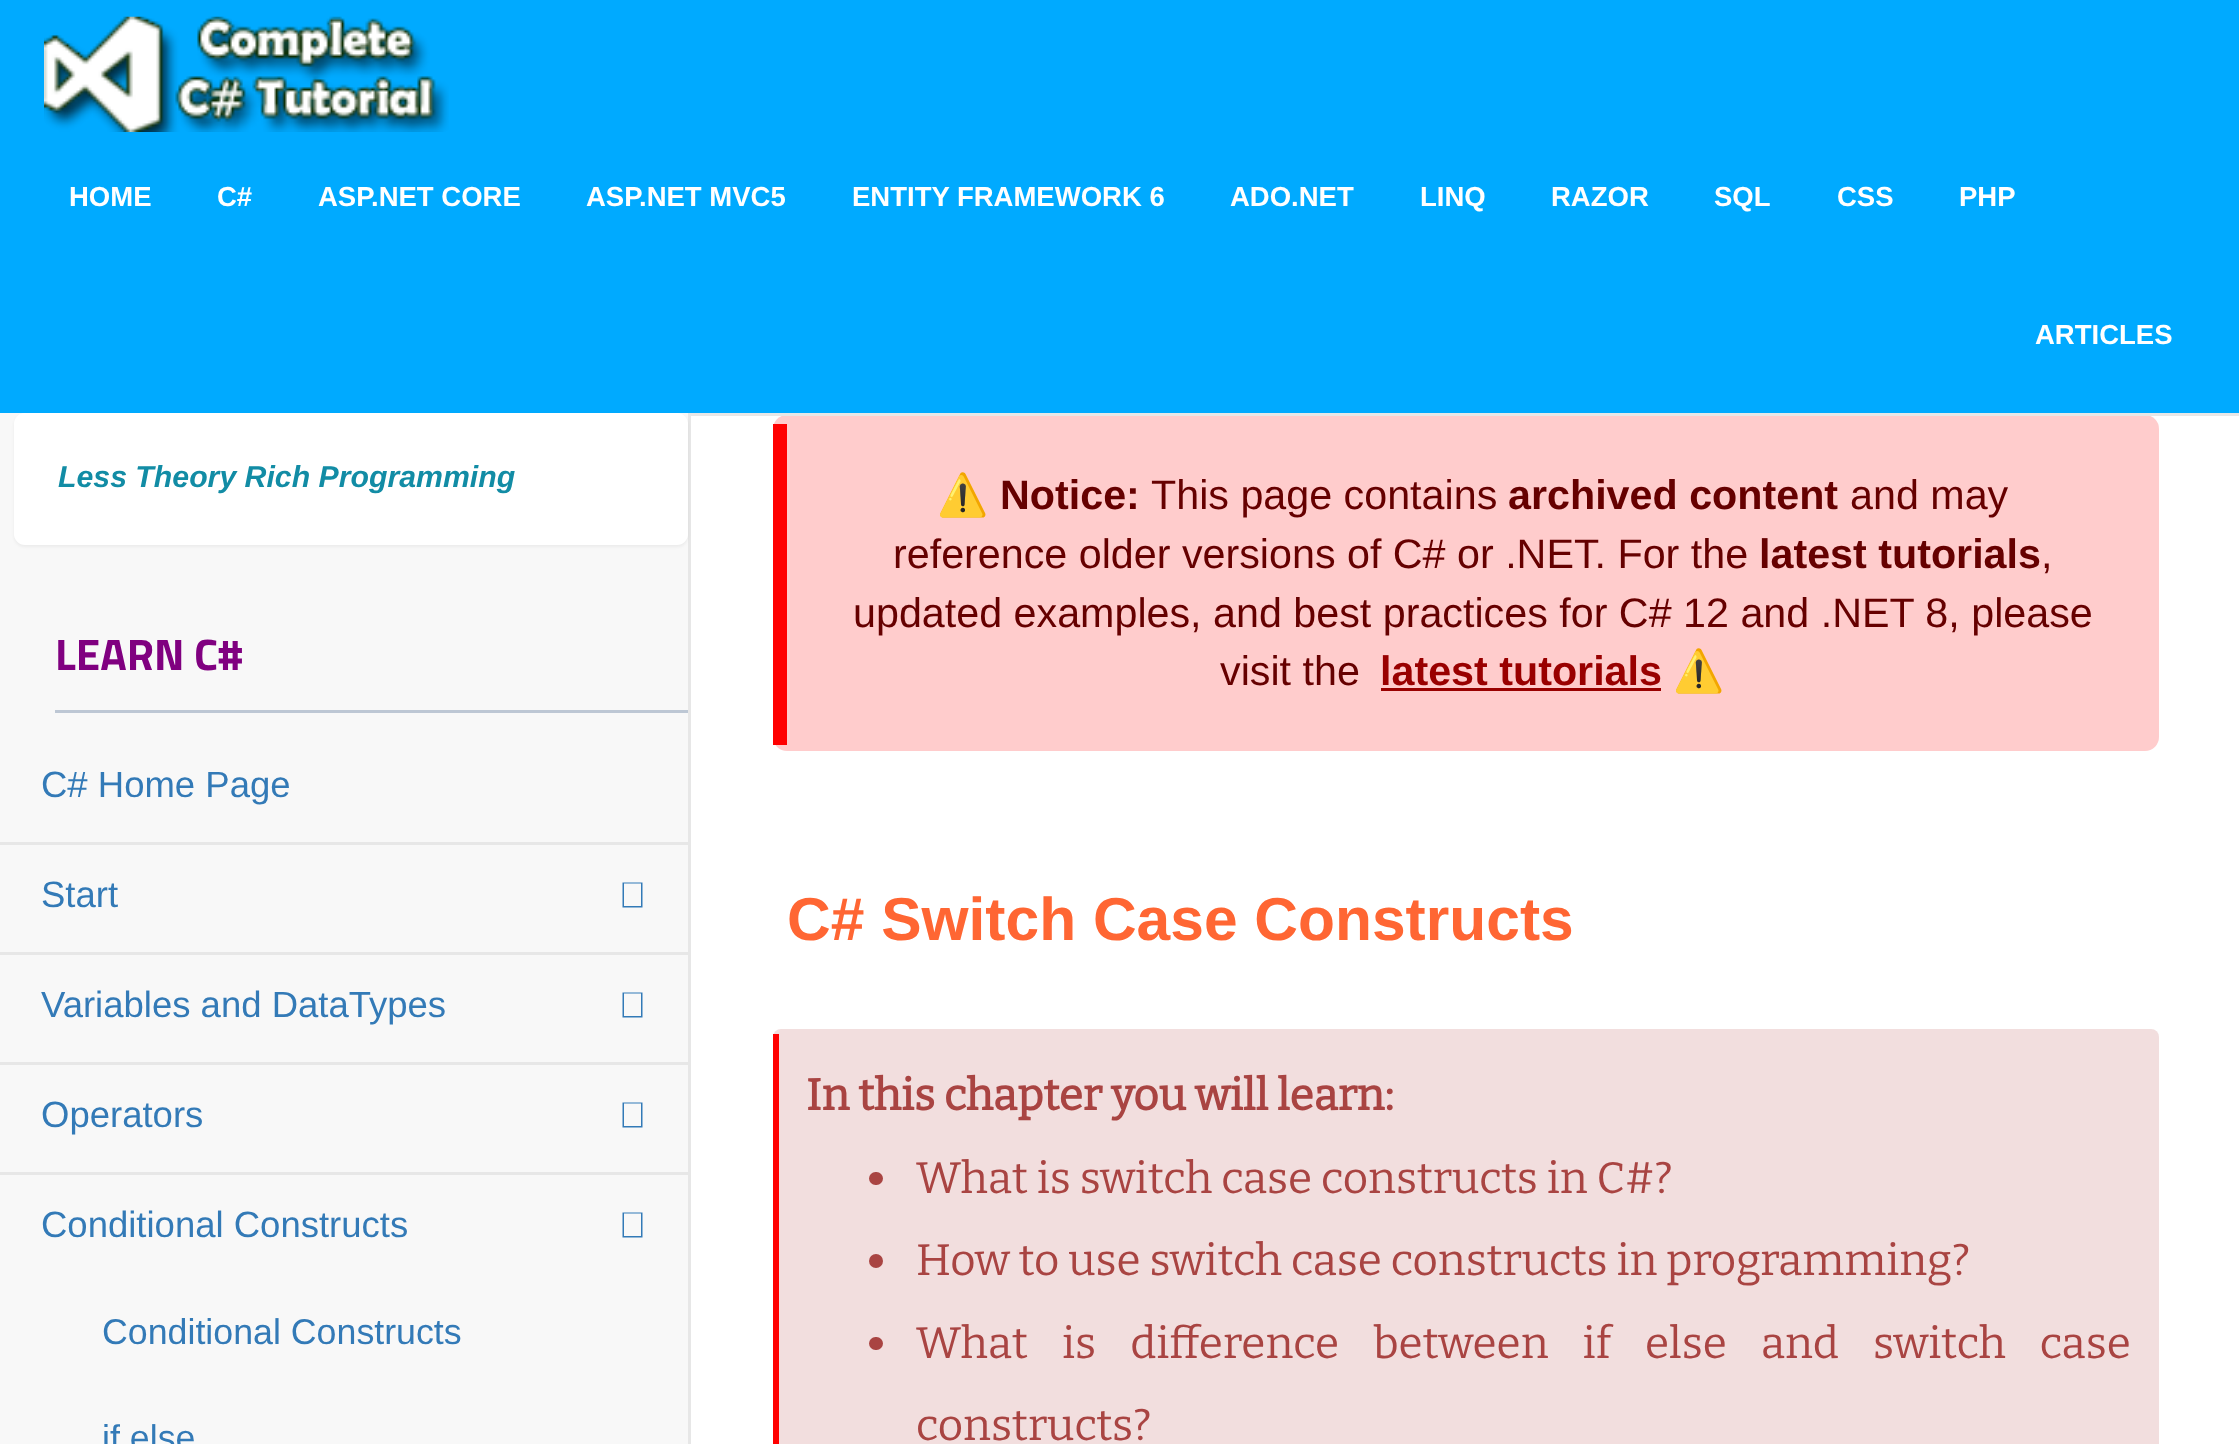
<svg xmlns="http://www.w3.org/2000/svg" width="2239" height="1444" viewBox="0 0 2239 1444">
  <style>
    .t1 { font: bold 27.5px Liberation Sans; fill: #fff; }
    .t2 { font: italic bold 30.25px Liberation Sans; fill: #128ca5; }
    .t3 { font: bold 44px Titillium Web; fill: #800080; }
    .t4 { font: 36.5px Liberation Sans; fill: #337ab7; }
    .t5 { font: 35.75px Liberation Sans; fill: #337ab7; }
    .t6 { font: 41.25px Noto Color Emoji; fill: #600; }
    .t7 { font: bold 41.25px Liberation Sans; fill: #600; }
    .t8 { font: 41.25px Liberation Sans; fill: #600; }
    .t9 { font: bold 41.25px Liberation Sans; fill: #900; }
    .t10 { font: bold 60.5px Liberation Sans; fill: #f63; }
    .t11 { font: bold 44px Bitter; fill: #a94442; }
    .t12 { font: 100 44px Bitter; fill: #a94442; }
  </style>
  <rect width="100%" height="100%" fill="#fff"/>
  <rect x="0" y="0" width="2239" height="413" fill="#0af"/>
  <rect x="688" y="415" width="3" height="1029" fill="#e7e7e7"/>
  <rect x="773" y="415" width="1386" height="336" rx="14" fill="#fcc"/>
  <rect x="688" y="413" width="1551" height="3" fill="#e7e7e7"/>
  <image x="44" y="16" width="405" height="116" href="images/1.png"/>
  <text x="69" y="206" class="t1">HOME</text>
  <text x="217" y="206" class="t1">C#</text>
  <text x="318" y="206" class="t1">ASP.NET CORE</text>
  <text x="586" y="206" class="t1">ASP.NET MVC5</text>
  <text x="852" y="206" class="t1">ENTITY FRAMEWORK 6</text>
  <text x="1230" y="206" class="t1">ADO.NET</text>
  <text x="1420" y="206" class="t1">LINQ</text>
  <text x="1551" y="206" class="t1">RAZOR</text>
  <text x="1714" y="206" class="t1">SQL</text>
  <text x="1837" y="206" class="t1">CSS</text>
  <text x="1959" y="206" class="t1">PHP</text>
  <text x="2035" y="344" class="t1">ARTICLES</text>
  <rect x="0" y="413" width="688" height="1031" fill="#f8f8f8"/>
  <rect x="14" y="415" width="674" height="132" rx="11" fill="#0000000d" filter="blur(1.5px)"/>
  <rect x="14" y="413" width="674" height="132" rx="11" fill="#fff"/>
  <text x="58" y="487" class="t2">Less Theory Rich Programming</text>
  <rect x="55" y="710" width="633" height="3" fill="#bdc7d4"/>
  <text x="55" y="670" class="t3">LEARN C#</text>
  <rect x="0" y="842" width="688" height="3" fill="#e7e7e7"/>
  <text x="41" y="797" class="t4">C# Home Page</text>
  <rect x="0" y="952" width="688" height="3" fill="#e7e7e7"/>
  <text x="41" y="907" class="t4">Start</text>
  <path d="M622.5 882.5H642.5V907.5H622.5ZM624 883.5V906H641V883.5Z" fill="#337ab7"/>
  <rect x="0" y="1062" width="688" height="3" fill="#e7e7e7"/>
  <text x="41" y="1017" class="t4">Variables and DataTypes</text>
  <path d="M622.5 992.5H642.5V1017.5H622.5ZM624 993.5V1016H641V993.5Z" fill="#337ab7"/>
  <rect x="0" y="1172" width="688" height="3" fill="#e7e7e7"/>
  <text x="41" y="1127" class="t4">Operators</text>
  <path d="M622.5 1102.5H642.5V1127.5H622.5ZM624 1103.5V1126H641V1103.5Z" fill="#337ab7"/>
  <text x="41" y="1237" class="t4">Conditional Constructs</text>
  <path d="M622.5 1212.5H642.5V1237.5H622.5ZM624 1213.5V1236H641V1213.5Z" fill="#337ab7"/>
  <text x="102" y="1344" class="t5">Conditional Constructs</text>
  <text x="102" y="1450" class="t5">if else</text>
  <rect x="773" y="424" width="14" height="321" fill="#f00"/>
  <text x="937" y="509" class="t6">⚠️</text>
  <text x="1000" y="509" class="t7">Notice:</text>
  <text x="1151" y="509" class="t8">This page contains</text>
  <text x="1508" y="509" class="t7">archived content</text>
  <text x="1850" y="509" class="t8">and may</text>
  <text x="893" y="568" class="t8">reference older versions of C# or .NET. For the</text>
  <text x="1759" y="568" class="t7">latest tutorials</text>
  <text x="2041" y="568" class="t8">,</text>
  <text x="853" y="627" class="t8">updated examples, and best practices for C# 12 and .NET 8, please</text>
  <text x="1220" y="685" class="t8">visit the</text>
  <text x="1380" y="685" class="t9">latest tutorials</text>
  <rect x="1381" y="688" width="280" height="3" fill="#900"/>
  <text x="1673" y="685" class="t6">⚠️</text>
  <text x="787" y="940" class="t10">C# Switch Case Constructs</text>
  <rect x="773" y="1029" width="1386" height="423" rx="8" fill="#f2dede"/>
  <rect x="773" y="1034" width="6" height="410" fill="#f00"/>
  <text x="806" y="1110" class="t11">In this chapter you will learn:</text>
  <rect x="869" y="1172" width="14" height="13" rx="6.5" fill="#a94442"/>
  <text x="916" y="1193" class="t12">What is switch case constructs in C#?</text>
  <circle cx="876" cy="1261" r="7" fill="#a94442"/>
  <text x="916" y="1275" class="t12">How to use switch case constructs in programming?</text>
  <rect x="869" y="1337" width="14" height="13" rx="6.5" fill="#a94442"/>
  <text x="916" y="1358" word-spacing="25.25" class="t12">What is difference between if else and switch case</text>
  <text x="916" y="1440" class="t12">constructs?</text>
</svg>
